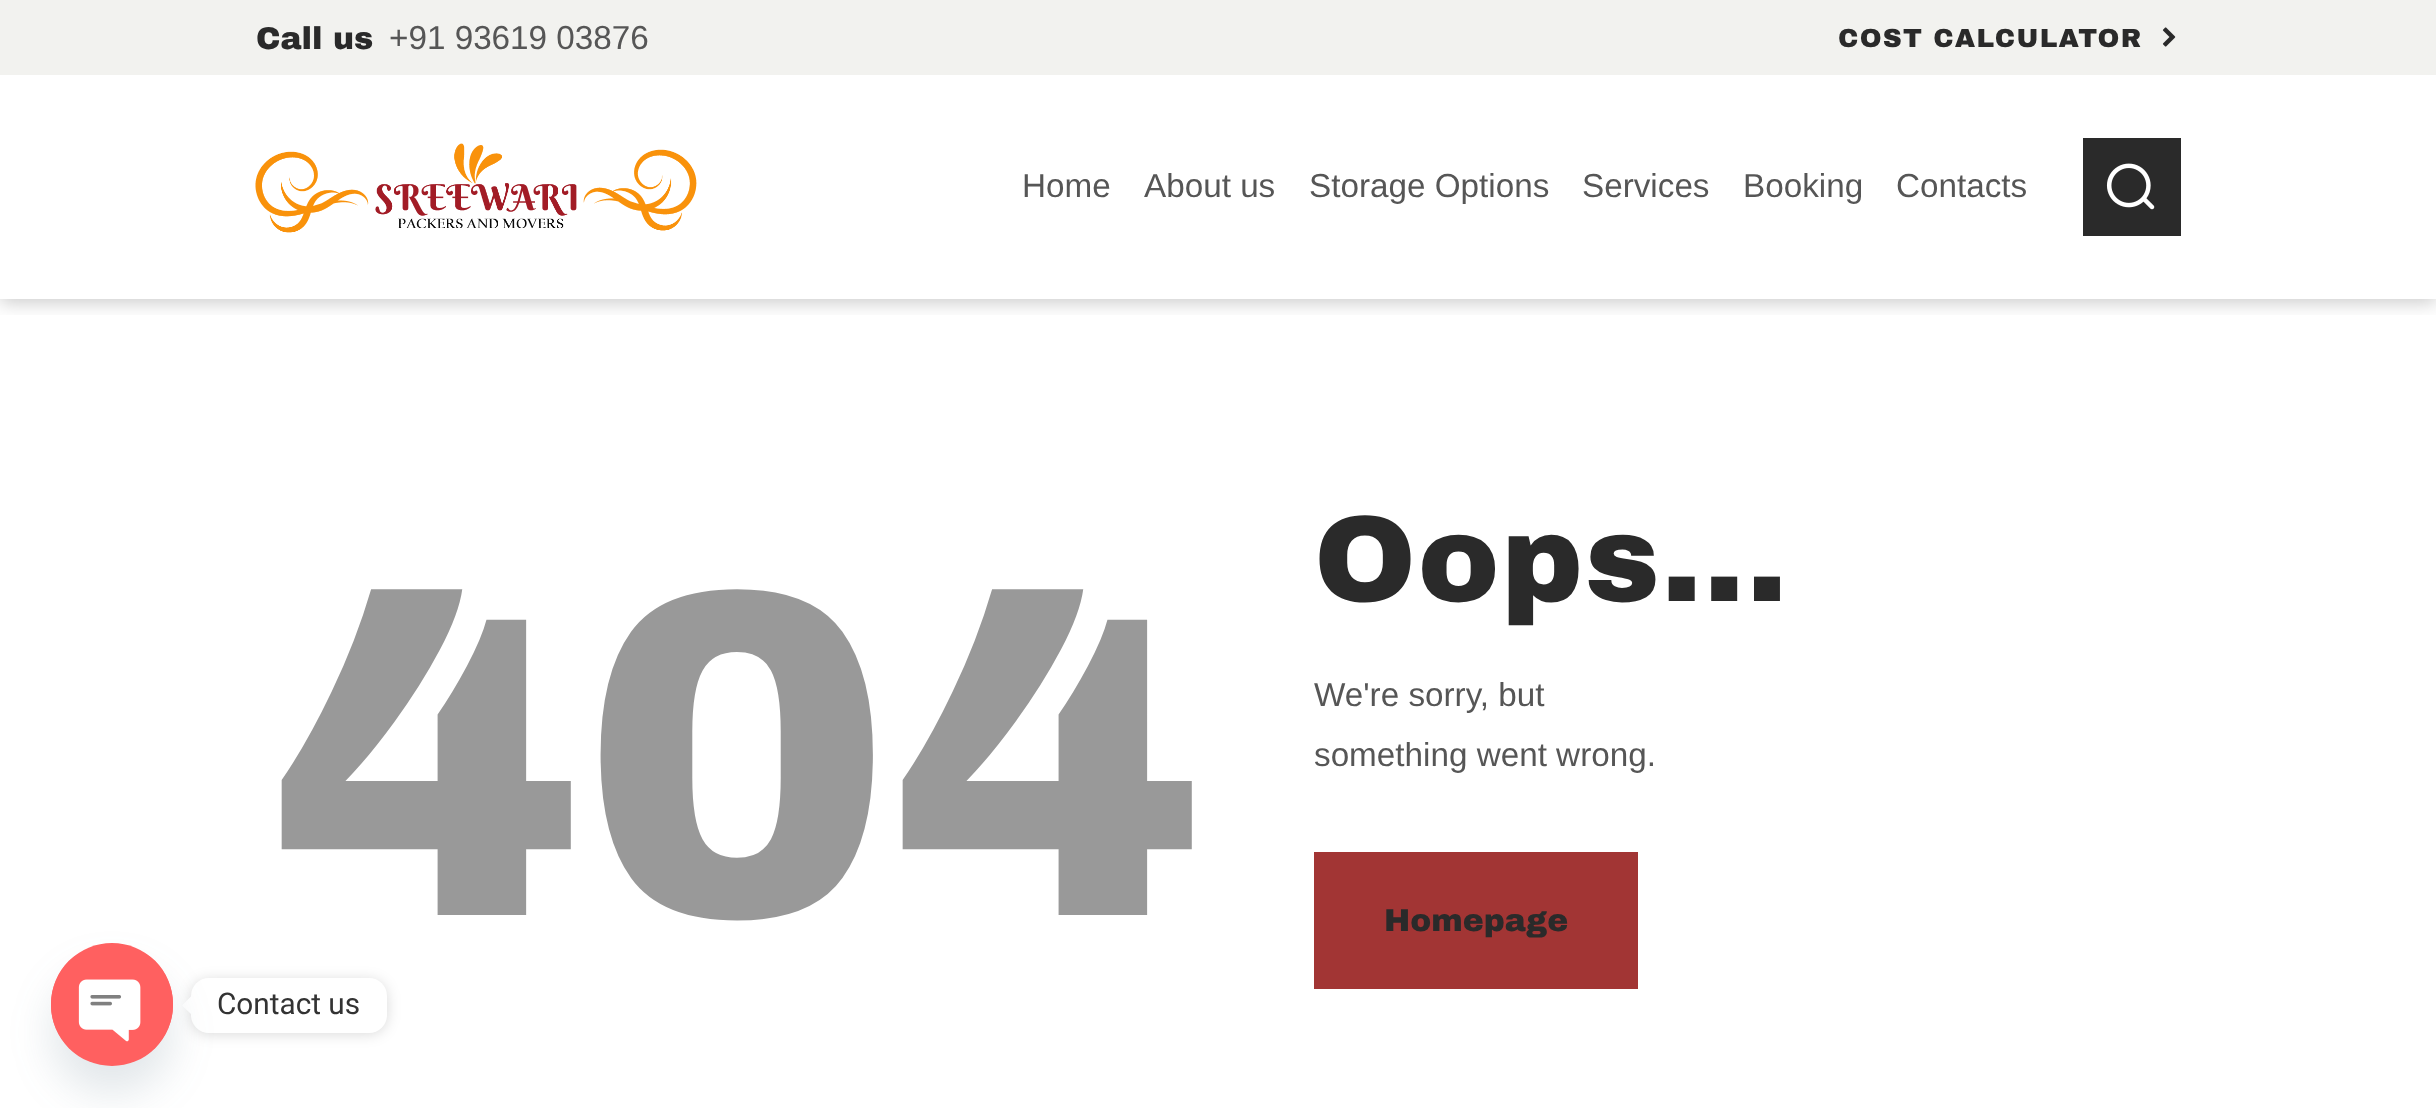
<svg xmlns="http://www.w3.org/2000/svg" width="2436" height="1108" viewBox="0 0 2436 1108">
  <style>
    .t1 { font: 900 31.5px Archivo Black; fill: #2a2a2a; }
    .t2 { font: 33.25px Arimo; fill: #565656; }
    .t3 { font: 900 26.25px Archivo Black; letter-spacing: 1.25px; fill: #2a2a2a; }
    .t4 { font: 900 465.5px Archivo Black; fill: #999; }
    .t5 { font: 900 122.5px Archivo Black; letter-spacing: 1.75px; fill: #2a2a2a; }
    .t6 { font: 29.75px Roboto; fill: #333; }
  </style>
  <defs>
    <clipPath id="clip1"><rect x="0" y="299" width="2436" height="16"/></clipPath>
  </defs>
  <rect width="100%" height="100%" fill="#fff"/>
  <g clip-path="url(#clip1)">
    <rect x="0" y="4" width="2436" height="299" fill="#00000033" filter="blur(9px)"/>
  </g>
  <rect x="0" y="0" width="2436" height="75" fill="#f2f2ef"/>
  <text x="256" y="49" class="t1">Call us</text>
  <text x="389" y="49" class="t2">+91 93619 03876</text>
  <text x="1838" y="47" class="t3">COST CALCULATOR</text>
  <image x="2162" y="27" width="14" height="20" href="images/1.png"/>
  <image x="255" y="143" width="442" height="90" href="images/2.png"/>
  <text x="1022" y="197" class="t2">Home</text>
  <text x="1144" y="197" class="t2">About us</text>
  <text x="1309" y="197" class="t2">Storage Options</text>
  <text x="1582" y="197" class="t2">Services</text>
  <text x="1743" y="197" class="t2">Booking</text>
  <text x="1896" y="197" class="t2">Contacts</text>
  <rect x="2083" y="138" width="98" height="98" fill="#2a2a2a"/>
  <image x="2106" y="163" width="49" height="47" href="images/3.png"/>
  <text x="271" y="915" class="t4">404</text>
  <text x="1314" y="601" class="t5">Oops...</text>
  <text x="1314" y="706" class="t2">We're sorry, but</text>
  <text x="1314" y="766" class="t2">something went wrong.</text>
  <rect x="1314" y="852" width="324" height="137" fill="#a23534"/>
  <text x="1384" y="931" class="t1">Homepage</text>
  <rect x="191" y="980" width="196" height="54" rx="18" fill="#00000026" filter="blur(7px)"/>
  <rect x="191" y="978" width="196" height="55" rx="18" fill="#fff"/>
  <path d="M191 996.5V1014L182 1005.5Z" fill="#fff"/>
  <rect x="51" y="971" width="122" height="123" rx="61" fill="#49687e29" filter="blur(21px)"/>
  <rect x="51" y="943" width="122" height="123" rx="61" fill="#ff6060"/>
  <image x="51" y="954" width="122" height="101" href="images/4.png"/>
  <text x="217" y="1014" class="t6">Contact us</text>
</svg>
